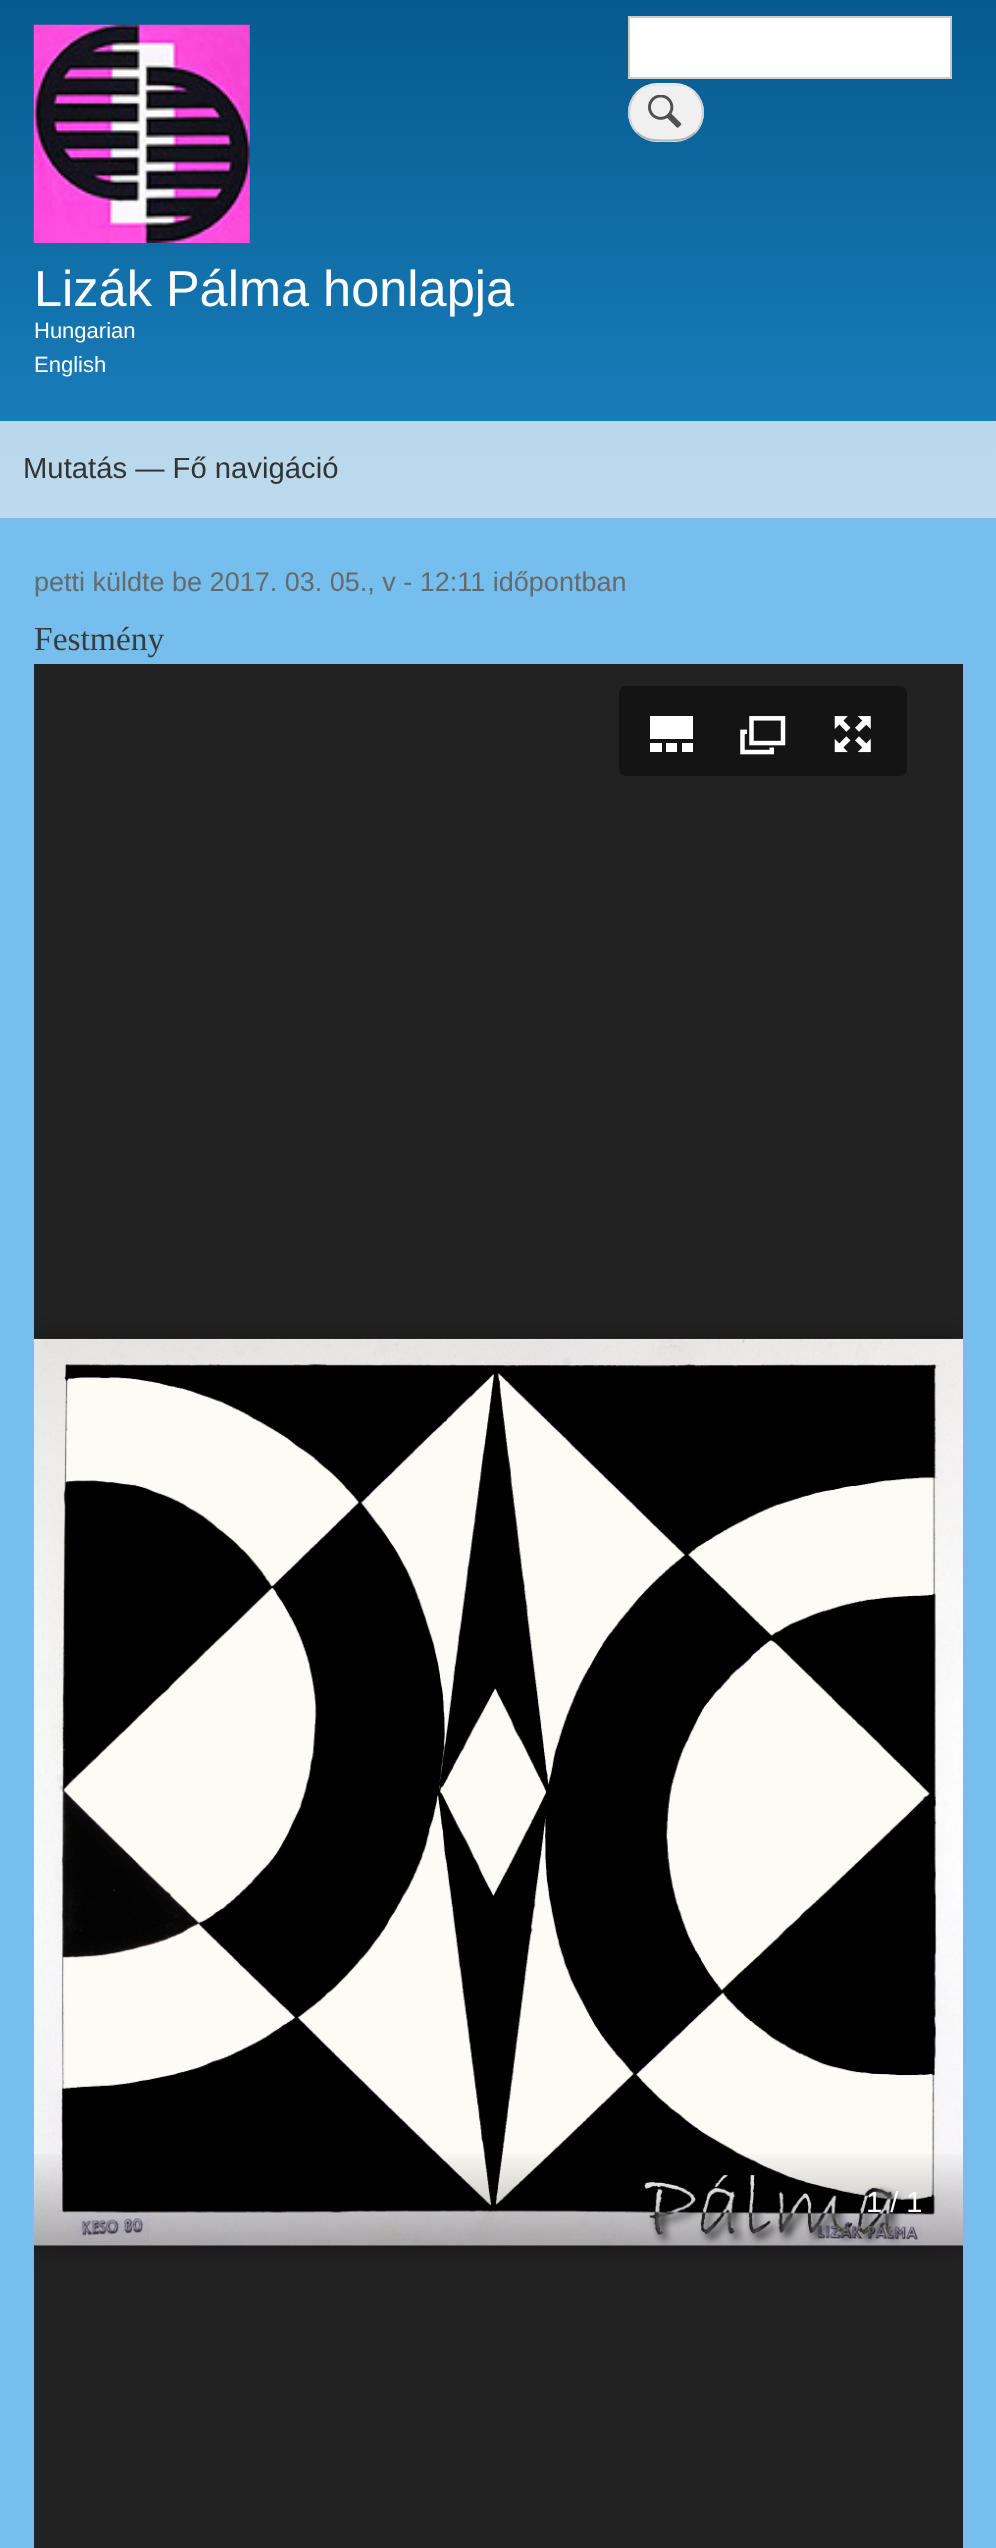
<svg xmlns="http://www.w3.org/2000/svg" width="996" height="2548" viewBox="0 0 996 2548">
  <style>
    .t1 { font: 50.5px Liberation Sans; fill: #fffeff; }
    .t2 { font: 22px Liberation Sans; fill: #fffeff; }
    .t3 { font: 29.25px Liberation Sans; fill: #333; }
    .t4 { font: 27px Liberation Sans; fill: #68696b; }
    .t5 { font: 33.5px Liberation Serif; fill: #3b3b3b; }
    .t6 { font: 29px Liberation Sans; fill: #fffeff; }
  </style>
  <defs>
    <linearGradient id="g1" gradientUnits="userSpaceOnUse" x1="498" y1="0" x2="498" y2="518"><stop offset="0" stop-color="#055a8e"/><stop offset="1" stop-color="#1d84c3"/></linearGradient>
    <linearGradient id="g2" gradientUnits="userSpaceOnUse" x1="498" y1="0" x2="498" y2="518"><stop offset="0" stop-color="#b4cedd"/><stop offset="1" stop-color="#bbdaed"/></linearGradient>
    <clipPath id="clip1"><rect x="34" y="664" width="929" height="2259"/></clipPath>
    <linearGradient id="g3" gradientUnits="userSpaceOnUse" x1="498" y1="2147" x2="498" y2="2246"><stop offset="0" stop-color="#000" stop-opacity="0"/><stop offset="1" stop-color="#000" stop-opacity="0.3"/></linearGradient>
  </defs>
  <rect width="100%" height="100%" fill="#74bfed"/>
  <rect x="0" y="0" width="996" height="421" fill="url(#g1)"/>
  <rect x="0" y="421" width="996" height="97" fill="url(#g2)"/>
  <rect x="629" y="17" width="322" height="61" fill="#fff" stroke="#ccc" stroke-width="2"/>
  <rect x="628" y="83" width="76" height="59" rx="29.5" fill="#f0f0f0"/>
  <image x="648" y="95" width="34" height="33" href="images/1.png"/>
  <path d="M637 92.5C645 84.5 655 84.5 666 84.5C677 84.5 687 84.5 695 92.5" fill="none" stroke="#e4e4e4" stroke-width="2.2"/>
  <path d="M695 92.5C705.5 103.5 705.5 121.5 695 132.5" fill="none" stroke="#d2d2d2" stroke-width="2.2"/>
  <path d="M695 132.5C687 140.5 677 140.5 666 140.5C655 140.5 645 140.5 637 132.5" fill="none" stroke="#b4b4b4" stroke-width="2.2"/>
  <path d="M637 132.5C626.5 121.5 626.5 103.5 637 92.5" fill="none" stroke="#d2d2d2" stroke-width="2.2"/>
  <image x="33" y="24" width="217" height="219" href="images/2.png"/>
  <text x="34" y="306" class="t1">Lizák Pálma honlapja</text>
  <text x="34" y="338" class="t2">Hungarian</text>
  <text x="34" y="372" class="t2">English</text>
  <text x="23" y="478" class="t3">Mutatás — Fő navigáció</text>
  <text x="34" y="591" class="t4">petti küldte be 2017. 03. 05., v - 12:11 időpontban</text>
  <text x="34" y="650" class="t5">Festmény</text>
  <rect x="34" y="664" width="929" height="1884" fill="#222"/>
  <rect x="619" y="686" width="288" height="90" rx="7" fill="#141414"/>
  <path d="M693 739H650V716H693ZM650 752V743H662V752ZM666 743H677V752H666ZM682 752V743H693V752Z" fill="#fff"/>
  <image x="740" y="716" width="46" height="39" href="images/3.png"/>
  <image x="834" y="716" width="37" height="37" href="images/4.png"/>
  <g clip-path="url(#clip1)">
    <rect x="34" y="1339" width="929" height="907" fill="#00000066" filter="blur(11px)"/>
  </g>
  <image x="33" y="1338" width="930" height="908" href="images/5.png"/>
  <rect x="34" y="2154" width="929" height="92" fill="url(#g3)"/>
  <text x="866" y="2212" class="t6">1 / 1</text>
</svg>
